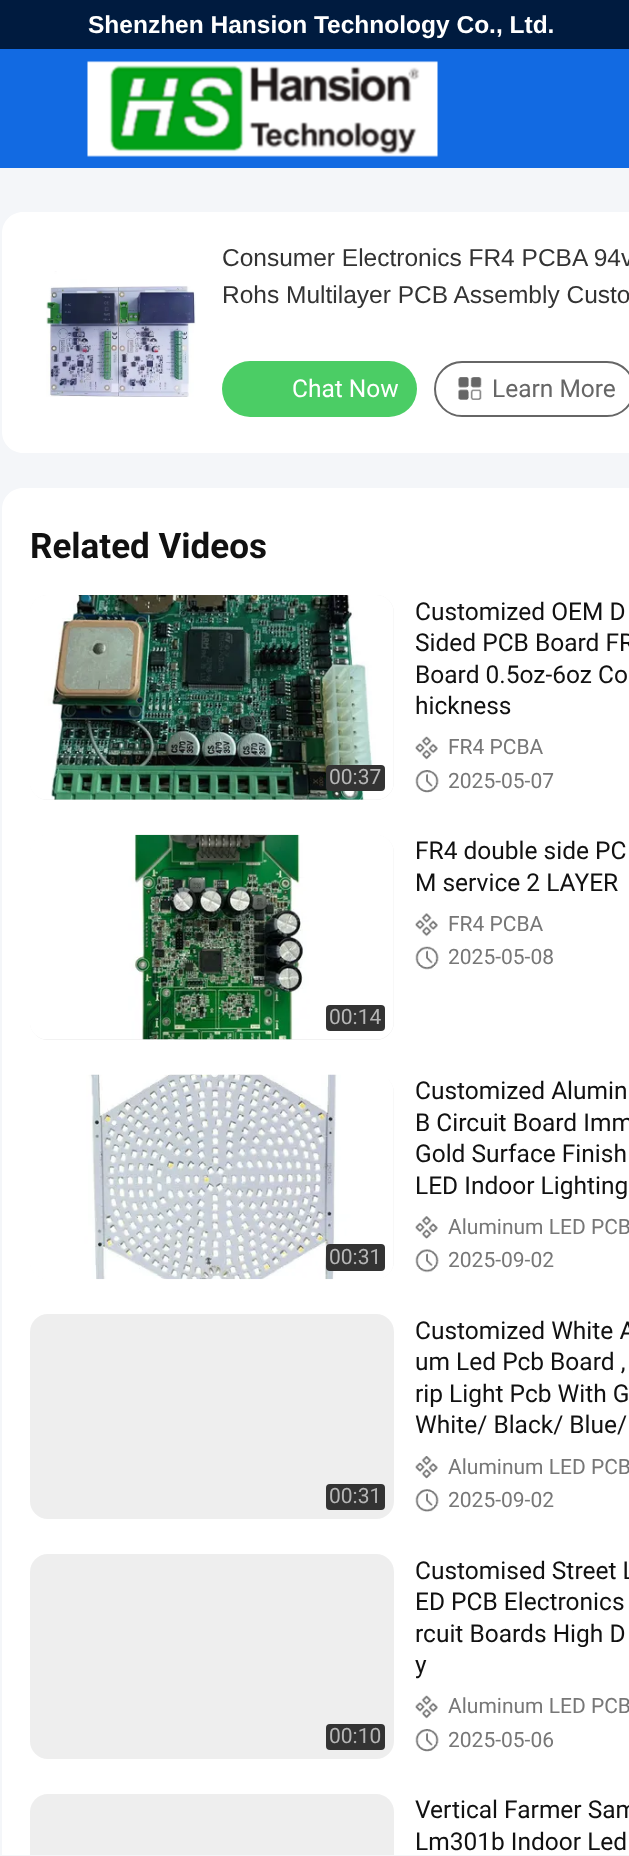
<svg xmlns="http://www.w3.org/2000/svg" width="629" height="1856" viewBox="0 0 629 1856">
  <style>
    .t1 { font: bold 24.5px Liberation Sans; fill: #fff; }
    .t2 { font: 24.5px Liberation Sans; fill: #333; }
    .t3 { font: 24.5px Roboto; fill: #fff; }
    .t4 { font: 24.5px Roboto; fill: #666; }
    .t5 { font: bold 35px Roboto; fill: #111; }
    .t6 { font: 21px Roboto; fill: #b6b6b6; }
    .t7 { font: 24.5px Roboto; fill: #111; }
    .t8 { font: 21px Roboto; fill: #777; }
  </style>
  <rect width="100%" height="100%" fill="#f4f6f9"/>
  <rect x="0" y="0" width="629" height="49" fill="#001b3f"/>
  <text x="88" y="33" class="t1">Shenzhen Hansion Technology Co., Ltd.</text>
  <rect x="0" y="49" width="629" height="119" fill="#126ae2"/>
  <image x="87" y="61" width="351" height="96" href="images/1.png"/>
  <path d="M23 212H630V453H23C11.5 453 2 443.5 2 432V233C2 221.5 11.5 212 23 212Z" fill="#fff"/>
  <image x="46" y="271" width="150" height="126" href="images/2.png"/>
  <text x="222" y="266" class="t2">Consumer Electronics FR4 PCBA 94v</text>
  <text x="222" y="303" class="t2">Rohs Multilayer PCB Assembly Custo</text>
  <rect x="222" y="361" width="195" height="56" rx="28" fill="#4bcd65"/>
  <text x="292" y="397" class="t3">Chat Now</text>
  <rect x="435" y="362" width="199" height="54" rx="27" fill="none" stroke="#666" stroke-width="2"/>
  <image x="458" y="377" width="24" height="23" href="images/3.png"/>
  <text x="492" y="397" class="t4">Learn More</text>
  <path d="M23 488H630V1855H2V509C2 497.5 11.5 488 23 488Z" fill="#fff"/>
  <text x="30" y="558" class="t5">Related Videos</text>
  <rect x="30" y="595" width="364" height="205" rx="18" fill="#eee"/>
  <image x="30" y="595" width="364" height="205" href="images/4.png"/>
  <rect x="326" y="765" width="59" height="26" rx="4" fill="#333"/>
  <text x="329" y="784" class="t6">00:37</text>
  <text x="415" y="620" class="t7">Customized OEM D</text>
  <text x="415" y="651" class="t7">Sided PCB Board FR</text>
  <text x="415" y="683" class="t7">Board 0.5oz-6oz Co</text>
  <text x="415" y="714" class="t7">hickness</text>
  <image x="415" y="736" width="23" height="24" href="images/5.png"/>
  <text x="448" y="754" class="t8">FR4 PCBA</text>
  <image x="415" y="770" width="24" height="23" href="images/6.png"/>
  <text x="448" y="788" class="t8">2025-05-07</text>
  <text x="415" y="859" class="t7">FR4 double side PC</text>
  <text x="415" y="891" class="t7">M service 2 LAYER</text>
  <image x="415" y="913" width="23" height="24" href="images/7.png"/>
  <text x="448" y="931" class="t8">FR4 PCBA</text>
  <image x="415" y="946" width="24" height="24" href="images/8.png"/>
  <text x="448" y="964" class="t8">2025-05-08</text>
  <rect x="30" y="835" width="364" height="205" rx="18" fill="#eee"/>
  <image x="30" y="834" width="364" height="206" href="images/9.png"/>
  <rect x="326" y="1005" width="59" height="26" rx="4" fill="#333"/>
  <text x="329" y="1024" class="t6">00:14</text>
  <rect x="30" y="1075" width="364" height="204" rx="18" fill="#eee"/>
  <image x="30" y="1074" width="364" height="206" href="images/10.png"/>
  <rect x="326" y="1244" width="59" height="27" rx="4" fill="#333"/>
  <text x="329" y="1264" class="t6">00:31</text>
  <text x="415" y="1099" class="t7">Customized Alumin</text>
  <text x="415" y="1131" class="t7">B Circuit Board Imm</text>
  <text x="415" y="1162" class="t7">Gold Surface Finish</text>
  <text x="415" y="1194" class="t7">LED Indoor Lighting</text>
  <image x="415" y="1216" width="23" height="23" href="images/11.png"/>
  <text x="448" y="1234" class="t8">Aluminum LED PCB</text>
  <image x="415" y="1249" width="24" height="24" href="images/12.png"/>
  <text x="448" y="1267" class="t8">2025-09-02</text>
  <rect x="30" y="1314" width="364" height="205" rx="18" fill="#eee"/>
  <rect x="326" y="1484" width="59" height="26" rx="4" fill="#333"/>
  <text x="329" y="1503" class="t6">00:31</text>
  <text x="415" y="1339" class="t7">Customized White A</text>
  <text x="415" y="1370" class="t7">um Led Pcb Board ,</text>
  <text x="415" y="1402" class="t7">rip Light Pcb With G</text>
  <text x="415" y="1433" class="t7">White/ Black/ Blue/</text>
  <image x="415" y="1456" width="23" height="23" href="images/13.png"/>
  <text x="448" y="1474" class="t8">Aluminum LED PCB</text>
  <image x="415" y="1489" width="24" height="23" href="images/14.png"/>
  <text x="448" y="1507" class="t8">2025-09-02</text>
  <rect x="30" y="1554" width="364" height="205" rx="18" fill="#eee"/>
  <rect x="326" y="1724" width="59" height="26" rx="4" fill="#333"/>
  <text x="329" y="1743" class="t6">00:10</text>
  <text x="415" y="1579" class="t7">Customised Street L</text>
  <text x="415" y="1610" class="t7">ED PCB Electronics</text>
  <text x="415" y="1642" class="t7">rcuit Boards High D</text>
  <text x="415" y="1673" class="t7">y</text>
  <image x="415" y="1695" width="23" height="24" href="images/5.png"/>
  <text x="448" y="1713" class="t8">Aluminum LED PCB</text>
  <image x="415" y="1729" width="24" height="23" href="images/6.png"/>
  <text x="448" y="1747" class="t8">2025-05-06</text>
  <path d="M48 1794H376C386 1794 394 1802 394 1812V1855H30V1812C30 1802 38 1794 48 1794Z" fill="#eee"/>
  <text x="415" y="1818" class="t7">Vertical Farmer Sam</text>
  <text x="415" y="1850" class="t7">Lm301b Indoor Led</text>
</svg>
